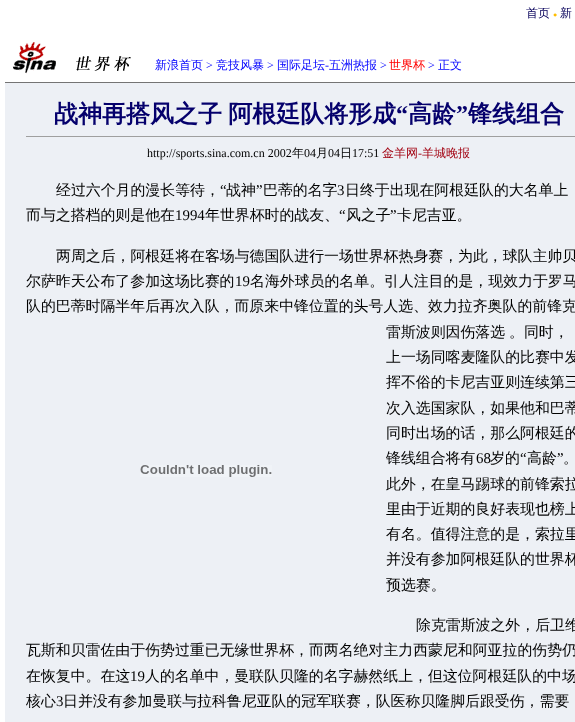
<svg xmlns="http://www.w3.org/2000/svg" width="575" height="722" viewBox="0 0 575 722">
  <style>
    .t1 { font: 500 12px WenQuanYi Zen Hei; fill: #07015b; }
    .t2 { font: 7px Liberation Serif; fill: #ffbd00; }
    .t3 { font: 500 12px WenQuanYi Zen Hei; fill: #00f; }
    .t4 { font: 12px Liberation Serif; fill: #00f; }
    .t5 { font: 500 12px WenQuanYi Zen Hei; fill: #f00; }
    .t6 { font: bold 24px WenQuanYi Zen Hei; fill: #05006c; }
    .t7 { font: bold 24px Liberation Serif; fill: #05006c; }
    .t8 { font: 12px Liberation Serif; fill: #000; }
    .t9 { font: 500 12px WenQuanYi Zen Hei; fill: #000; }
    .t10 { font: 500 12px WenQuanYi Zen Hei; fill: #a20010; }
    .t11 { font: 12px Liberation Serif; fill: #a20010; }
    .t12 { font: 500 14.9px WenQuanYi Zen Hei; fill: #000; }
    .t13 { font: 14.9px Liberation Serif; fill: #000; }
  </style>
  <rect width="100%" height="100%" fill="#fff"/>
  <text x="526" y="17" class="t1">首页</text>
  <text x="553" y="17" class="t2">●</text>
  <text x="560" y="17" class="t1">新</text>
  <image x="12" y="42" width="119" height="32" href="images/1.png"/>
  <text x="155" y="69" class="t3">新浪首页</text>
  <text x="206" y="69" class="t4">&gt;</text>
  <text x="216" y="69" class="t3">竞技风暴</text>
  <text x="267" y="69" class="t4">&gt;</text>
  <text x="277" y="69" class="t3">国际足坛</text>
  <text x="325" y="69" class="t4">-</text>
  <text x="329" y="69" class="t3">五洲热报</text>
  <text x="380" y="69" class="t4">&gt;</text>
  <text x="389" y="69" class="t5">世界杯</text>
  <text x="428" y="69" class="t4">&gt;</text>
  <text x="438" y="69" class="t3">正文</text>
  <rect x="5" y="82" width="570" height="1" fill="#747474"/>
  <rect x="5" y="83" width="570" height="639" fill="#edf0f5"/>
  <text x="54" y="122" word-spacing="-1" class="t6">战神再搭风之子 阿根廷队将形成</text>
  <text x="396" y="122" class="t7">“</text>
  <text x="408" y="122" class="t6">高龄</text>
  <text x="456" y="122" class="t7">”</text>
  <text x="468" y="122" class="t6">锋线组合</text>
  <rect x="26" y="136" width="549" height="1" fill="#9f9f9f"/>
  <text x="147" y="157" class="t8">http://sports.sina.com.cn 2002</text>
  <text x="292" y="157" class="t9">年</text>
  <text x="304" y="157" class="t8">04</text>
  <text x="316" y="157" class="t9">月</text>
  <text x="328" y="157" class="t8">04</text>
  <text x="340" y="157" class="t9">日</text>
  <text x="352" y="157" class="t8">17:51</text>
  <text x="382" y="157" class="t10">金羊网</text>
  <text x="418" y="157" class="t11">-</text>
  <text x="422" y="157" class="t10">羊城晚报</text>
  <text x="56" y="195" class="t12">经过六个月的漫长等待，</text>
  <text x="220" y="195" class="t13">“</text>
  <text x="226" y="195" class="t12">战神</text>
  <text x="256" y="195" class="t13">”</text>
  <text x="263" y="195" class="t12">巴蒂的名字</text>
  <text x="337" y="195" class="t13">3</text>
  <text x="345" y="195" class="t12">日终于出现在阿根廷队的大名单上</text>
  <text x="26" y="220" class="t12">而与之搭档的则是他在</text>
  <text x="175" y="220" class="t13">1994</text>
  <text x="205" y="220" class="t12">年世界杯时的战友、</text>
  <text x="339" y="220" class="t13">“</text>
  <text x="346" y="220" class="t12">风之子</text>
  <text x="390" y="220" class="t13">”</text>
  <text x="397" y="220" class="t12">卡尼吉亚。</text>
  <text x="56" y="261" class="t12">两周之后，阿根廷将在客场与德国队进行一场世界杯热身赛，为此，球队主帅贝</text>
  <text x="26" y="286" class="t12">尔萨昨天公布了参加这场比赛的</text>
  <text x="235" y="286" class="t13">19</text>
  <text x="250" y="286" class="t12">名海外球员的名单。引人注目的是，现效力于罗马</text>
  <text x="26" y="311" class="t12">队的巴蒂时隔半年后再次入队，而原来中锋位置的头号人选、效力拉齐奥队的前锋克</text>
  <text x="386" y="337" class="t12">雷斯波则因伤落选</text>
  <text x="509" y="337" class="t12">。同时，</text>
  <text x="386" y="362" class="t12">上一场同喀麦隆队的比赛中发</text>
  <text x="386" y="387" class="t12">挥不俗的卡尼吉亚则连续第三</text>
  <text x="386" y="413" class="t12">次入选国家队，如果他和巴蒂</text>
  <text x="386" y="438" class="t12">同时出场的话，那么阿根廷的</text>
  <text x="386" y="463" class="t12">锋线组合将有</text>
  <text x="476" y="463" class="t13">68</text>
  <text x="490" y="463" class="t12">岁的</text>
  <text x="520" y="463" class="t13">“</text>
  <text x="527" y="463" class="t12">高龄</text>
  <text x="557" y="463" class="t13">”</text>
  <text x="563" y="463" class="t12">。</text>
  <image x="140" y="465" width="132" height="12" href="images/2.png"/>
  <text x="386" y="489" class="t12">此外，在皇马踢球的前锋索拉</text>
  <text x="386" y="514" class="t12">里由于近期的良好表现也榜上</text>
  <text x="386" y="539" class="t12">有名。值得注意的是，索拉里</text>
  <text x="386" y="564" class="t12">并没有参加阿根廷队的世界杯</text>
  <text x="386" y="590" class="t12">预选赛。</text>
  <text x="416" y="630" class="t12">除克雷斯波之外，后卫维</text>
  <text x="26" y="655" class="t12">瓦斯和贝雷佐由于伤势过重已无缘世界杯，而两名绝对主力西蒙尼和阿亚拉的伤势仍</text>
  <text x="26" y="681" class="t12">在恢复中。在这</text>
  <text x="130" y="681" class="t13">19</text>
  <text x="145" y="681" class="t12">人的名单中，曼联队贝隆的名字赫然纸上，但这位阿根廷队的中场</text>
  <text x="26" y="706" class="t12">核心</text>
  <text x="56" y="706" class="t13">3</text>
  <text x="63" y="706" class="t12">日并没有参加曼联与拉科鲁尼亚队的冠军联赛，队医称贝隆脚后跟受伤，需要</text>
</svg>
